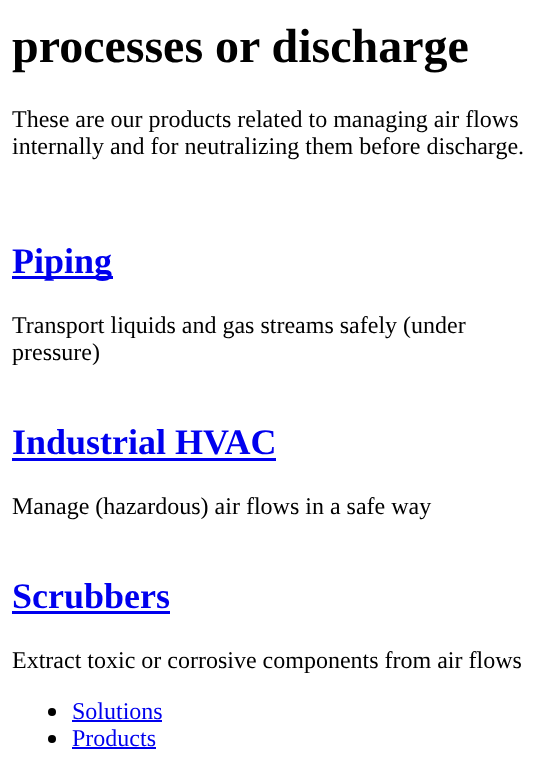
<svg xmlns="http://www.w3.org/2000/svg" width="542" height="757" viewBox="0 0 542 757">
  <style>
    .t1 { font: bold 48px Liberation Serif; fill: #000; }
    .t2 { font: 24px Liberation Serif; fill: #000; }
    .t3 { font: bold 36px Liberation Serif; fill: #00e; }
    .t4 { font: 24px Liberation Serif; fill: #00e; }
  </style>
  <rect width="100%" height="100%" fill="#fff"/>
  <text x="12" y="62" class="t1">processes or discharge</text>
  <text x="12" y="127" class="t2">These are our products related to managing air flows</text>
  <text x="12" y="154" class="t2">internally and for neutralizing them before discharge.</text>
  <rect x="12" y="276" width="101" height="3" fill="#00e"/>
  <text x="12" y="273" class="t3">Piping</text>
  <text x="12" y="333" class="t2">Transport liquids and gas streams safely (under</text>
  <text x="12" y="360" class="t2">pressure)</text>
  <text x="12" y="454" class="t3">Industrial HVAC</text>
  <rect x="12" y="458" width="264" height="3" fill="#00e"/>
  <text x="12" y="514" class="t2">Manage (hazardous) air flows in a safe way</text>
  <text x="12" y="608" class="t3">Scrubbers</text>
  <rect x="12" y="611" width="158" height="3" fill="#00e"/>
  <text x="12" y="668" class="t2">Extract toxic or corrosive components from air flows</text>
  <circle cx="52" cy="712" r="4" fill="#000"/>
  <text x="72" y="719" class="t4">Solutions</text>
  <rect x="72" y="720" width="90" height="2" fill="#00e"/>
  <circle cx="52" cy="739" r="4" fill="#000"/>
  <text x="72" y="746" class="t4">Products</text>
  <rect x="72" y="747" width="84" height="2" fill="#00e"/>
</svg>
